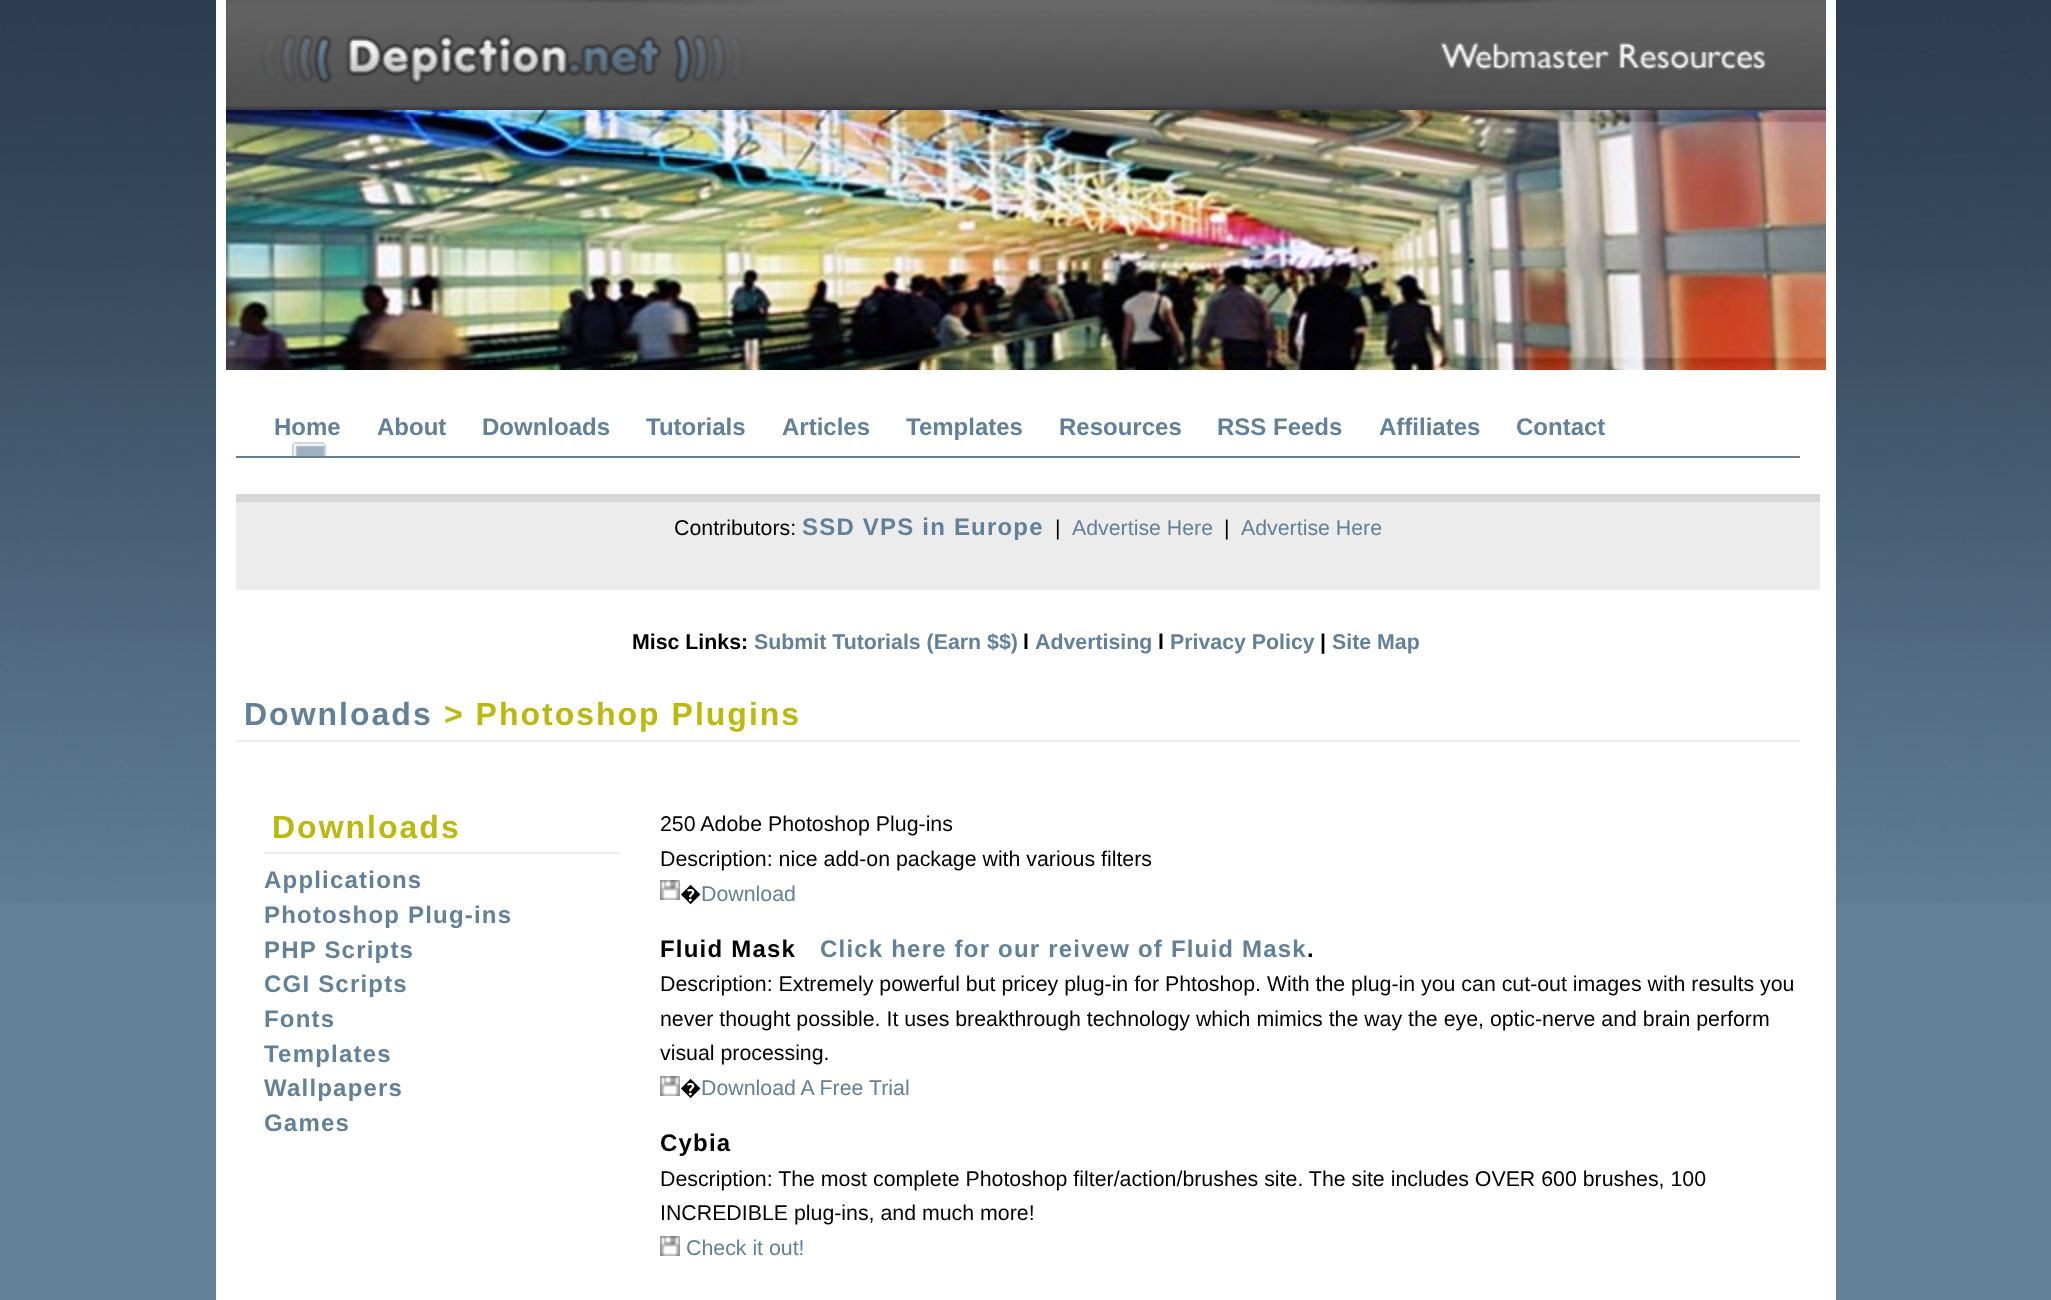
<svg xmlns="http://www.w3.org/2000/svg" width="2051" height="1300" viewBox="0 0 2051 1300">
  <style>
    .t1 { font: bold 24px Liberation Sans; fill: #628098; }
    .t2 { font: 21.33px Liberation Sans; fill: #000; }
    .t3 { font: bold 24px Liberation Sans; letter-spacing: 1.2px; fill: #628098; }
    .t4 { font: 21.33px Liberation Sans; fill: #628098; }
    .t5 { font: bold 21.33px Liberation Sans; fill: #000; }
    .t6 { font: bold 21.33px Liberation Sans; fill: #628098; }
    .t7 { font: bold 32px Liberation Sans; letter-spacing: 2px; fill: #628098; }
    .t8 { font: bold 32px Liberation Sans; letter-spacing: 2px; fill: #bbb90c; }
    .t9 { font: 21.33px Noto Sans; fill: #000; }
    .t10 { font: bold 24px Liberation Sans; letter-spacing: 1.2px; fill: #000; }
  </style>
  <rect width="100%" height="100%" fill="#628098"/>
  <image x="0" y="0" width="2051" height="902" href="images/1.png"/>
  <rect x="216" y="0" width="1620" height="1300" fill="#fff"/>
  <image x="226" y="0" width="1600" height="110" href="images/2.png"/>
  <image x="226" y="110" width="1600" height="260" href="images/3.png"/>
  <rect x="236" y="456" width="1564" height="2" fill="#628098"/>
  <image x="292" y="442" width="35" height="14" href="images/4.png"/>
  <text x="274" y="435" class="t1">Home</text>
  <text x="377" y="435" class="t1">About</text>
  <text x="482" y="435" class="t1">Downloads</text>
  <text x="646" y="435" class="t1">Tutorials</text>
  <text x="782" y="435" class="t1">Articles</text>
  <text x="906" y="435" class="t1">Templates</text>
  <text x="1059" y="435" class="t1">Resources</text>
  <text x="1217" y="435" class="t1">RSS Feeds</text>
  <text x="1379" y="435" class="t1">Affiliates</text>
  <text x="1516" y="435" class="t1">Contact</text>
  <rect x="236" y="502" width="1584" height="88" fill="#ececec"/>
  <rect x="236" y="494" width="1584" height="8" fill="#d7d7d7"/>
  <text x="674" y="535" class="t2">Contributors:</text>
  <text x="802" y="535" class="t3">SSD VPS in Europe</text>
  <text x="1055" y="535" class="t2">|</text>
  <text x="1072" y="535" class="t4">Advertise Here</text>
  <text x="1224" y="535" class="t2">|</text>
  <text x="1241" y="535" class="t4">Advertise Here</text>
  <text x="632" y="649" class="t5">Misc Links:</text>
  <text x="754" y="649" class="t6">Submit Tutorials (Earn $$)</text>
  <text x="1023" y="649" class="t5">l</text>
  <text x="1035" y="649" class="t6">Advertising</text>
  <text x="1158" y="649" class="t5">l</text>
  <text x="1170" y="649" class="t6">Privacy Policy</text>
  <text x="1320" y="649" class="t5">|</text>
  <text x="1332" y="649" class="t6">Site Map</text>
  <rect x="236" y="740" width="1564" height="2" fill="#ededec"/>
  <text x="244" y="725" class="t7">Downloads</text>
  <text x="444" y="725" class="t8">&gt; Photoshop Plugins</text>
  <rect x="264" y="852" width="356" height="2" fill="#ededec"/>
  <text x="272" y="838" class="t8">Downloads</text>
  <text x="264" y="888" class="t3">Applications</text>
  <text x="264" y="923" class="t3">Photoshop Plug-ins</text>
  <text x="264" y="958" class="t3">PHP Scripts</text>
  <text x="264" y="992" class="t3">CGI Scripts</text>
  <text x="264" y="1027" class="t3">Fonts</text>
  <text x="264" y="1062" class="t3">Templates</text>
  <text x="264" y="1096" class="t3">Wallpapers</text>
  <text x="264" y="1131" class="t3">Games</text>
  <text x="660" y="831" class="t2">250 Adobe Photoshop Plug-ins</text>
  <text x="660" y="866" class="t2">Description: nice add-on package with various filters</text>
  <image x="660" y="880" width="20" height="20" href="images/5.png"/>
  <text x="680" y="901" class="t9">�</text>
  <text x="701" y="901" class="t4">Download</text>
  <text x="660" y="957" class="t10">Fluid Mask</text>
  <text x="820" y="957" class="t3">Click here for our reivew of Fluid Mask</text>
  <text x="1307" y="957" class="t10">.</text>
  <text x="660" y="991" class="t2">Description: Extremely powerful but pricey plug-in for Phtoshop. With the plug-in you can cut-out images with results you</text>
  <text x="660" y="1026" class="t2">never thought possible. It uses breakthrough technology which mimics the way the eye, optic-nerve and brain perform</text>
  <text x="660" y="1060" class="t2">visual processing.</text>
  <image x="660" y="1076" width="20" height="20" href="images/5.png"/>
  <text x="680" y="1095" class="t9">�</text>
  <text x="701" y="1095" class="t4">Download A Free Trial</text>
  <text x="660" y="1151" class="t10">Cybia</text>
  <text x="660" y="1186" class="t2">Description: The most complete Photoshop filter/action/brushes site. The site includes OVER 600 brushes, 100</text>
  <text x="660" y="1220" class="t2">INCREDIBLE plug-ins, and much more!</text>
  <image x="660" y="1236" width="20" height="20" href="images/5.png"/>
  <text x="686" y="1255" class="t4">Check it out!</text>
</svg>
